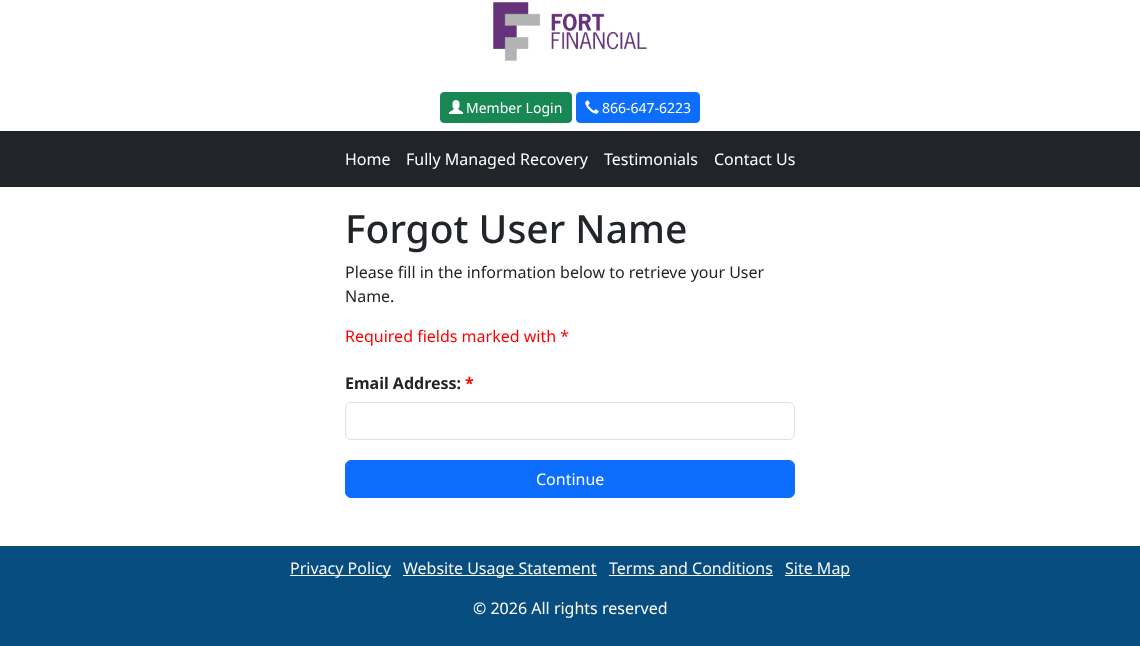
<svg xmlns="http://www.w3.org/2000/svg" width="1140" height="646" viewBox="0 0 1140 646">
  <style>
    .t1 { font: 14px Noto Sans; fill: #fff; }
    .t2 { font: 16px Noto Sans; fill: #fff; }
    .t3 { font: 500 39px Noto Sans; fill: #212529; }
    .t4 { font: 16px Noto Sans; fill: #212529; }
    .t5 { font: 16px Noto Sans; fill: #f00; }
    .t6 { font: bold 16px Noto Sans; fill: #212529; }
    .t7 { font: bold 16px Noto Sans; fill: #f00; }
    .t8 { font: 16px Noto Sans; fill: #f8f9fa; }
  </style>
  <rect width="100%" height="100%" fill="#fff"/>
  <image x="493" y="1" width="154" height="60" href="images/1.png"/>
  <rect x="440.5" y="92.5" width="131" height="30" rx="3.5" fill="#198754" stroke="#198754"/>
  <image x="449" y="100" width="14" height="14" href="images/2.png"/>
  <text x="466" y="113" class="t1">Member Login</text>
  <rect x="576.5" y="92.5" width="123" height="30" rx="3.5" fill="#0d6efd" stroke="#0d6efd"/>
  <image x="585" y="100" width="14" height="14" href="images/3.png"/>
  <text x="602" y="113" class="t1">866-647-6223</text>
  <rect x="0" y="131" width="1140" height="56" fill="#212529"/>
  <text x="345" y="165" class="t2">Home</text>
  <text x="406" y="165" class="t2">Fully Managed Recovery</text>
  <text x="604" y="165" class="t2">Testimonials</text>
  <text x="714" y="165" class="t2">Contact Us</text>
  <text x="345" y="243" class="t3">Forgot User Name</text>
  <text x="345" y="278" class="t4">Please fill in the information below to retrieve your User</text>
  <text x="345" y="302" class="t4">Name.</text>
  <text x="345" y="342" class="t5">Required fields marked with *</text>
  <text x="345" y="389" class="t6">Email Address:</text>
  <text x="465" y="389" class="t7">*</text>
  <rect x="345.5" y="402.5" width="449" height="37" rx="5.5" fill="none" stroke="#dee2e6"/>
  <rect x="345.5" y="460.5" width="449" height="37" rx="5.5" fill="#0d6efd" stroke="#0d6efd"/>
  <text x="536" y="485" class="t2">Continue</text>
  <rect x="0" y="546" width="1140" height="100" fill="#074d80"/>
  <rect x="290" y="575" width="101" height="1" fill="#f8f9fa"/>
  <text x="290" y="574" class="t8">Privacy Policy</text>
  <rect x="403" y="575" width="194" height="1" fill="#f8f9fa"/>
  <text x="403" y="574" class="t8">Website Usage Statement</text>
  <text x="609" y="574" class="t8">Terms and Conditions</text>
  <rect x="609" y="575" width="164" height="1" fill="#f8f9fa"/>
  <rect x="785" y="575" width="65" height="1" fill="#f8f9fa"/>
  <text x="785" y="574" class="t8">Site Map</text>
  <text x="473" y="614" class="t2">© 2026 All rights reserved</text>
</svg>
